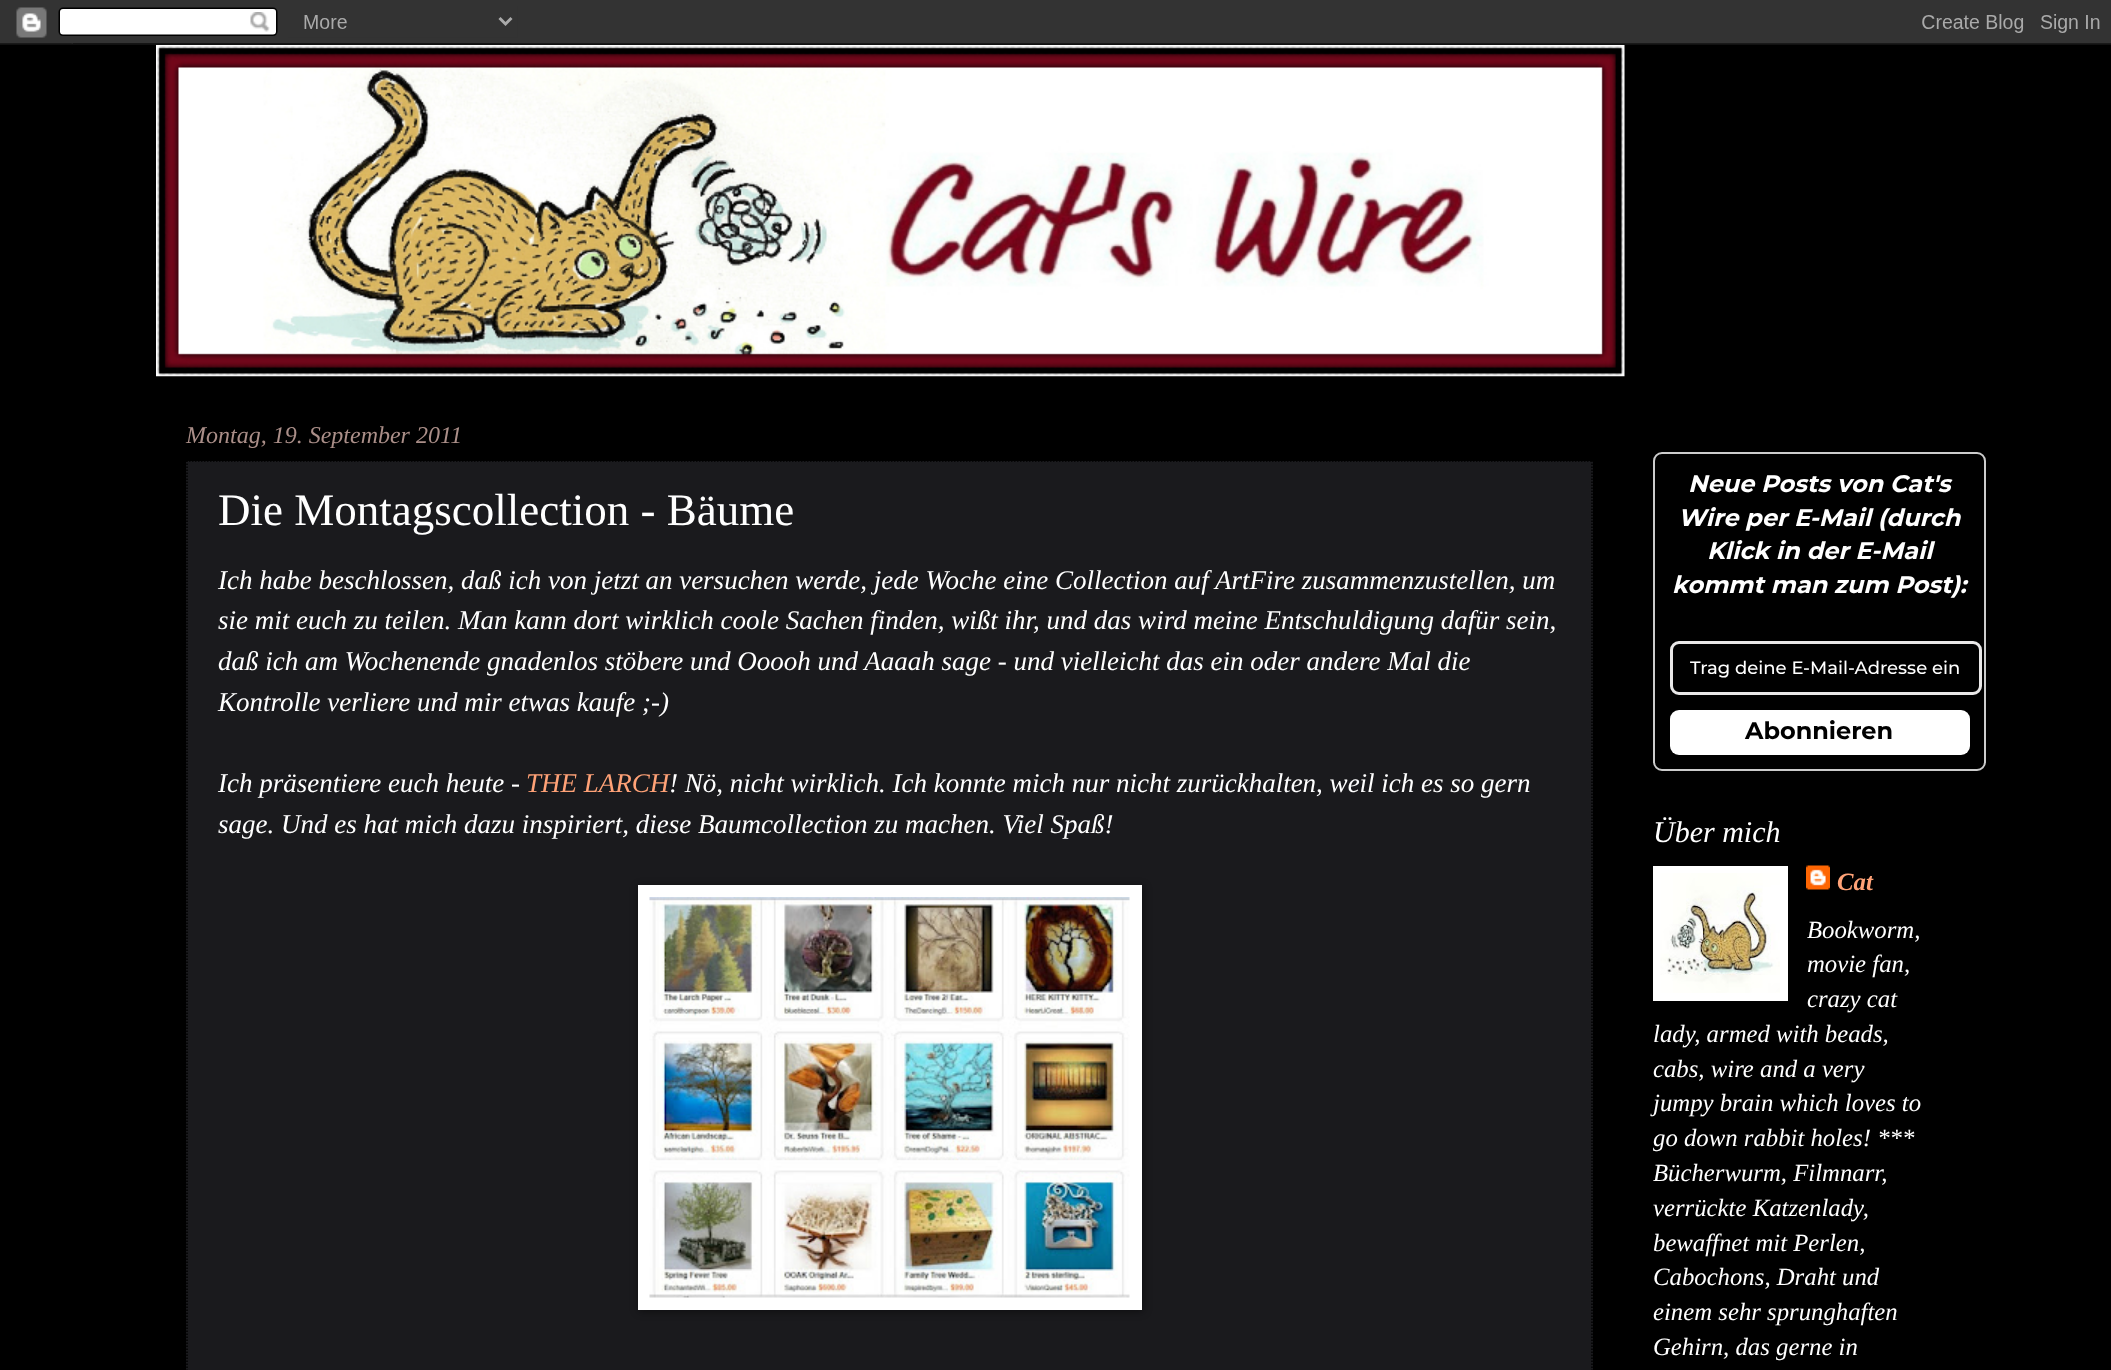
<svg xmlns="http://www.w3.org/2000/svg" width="2111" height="1370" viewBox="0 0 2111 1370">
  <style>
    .t1 { font: italic 24px Liberation Serif; fill: #aa8e88; }
    .t2 { font: 45px Liberation Serif; fill: #fff; }
    .t3 { font: italic 27px Liberation Serif; fill: #fff; }
    .t4 { font: italic 27px Liberation Serif; fill: #ffa277; }
    .t5 { font: italic bold 24px Montserrat; fill: #fff; }
    .t6 { font: 500 18px Montserrat; fill: #fff; }
    .t7 { font: bold 24px Montserrat; fill: #000; }
    .t8 { font: italic 30px Liberation Serif; fill: #fff; }
    .t9 { font: italic bold 24.75px Liberation Serif; fill: #ffa277; }
    .t10 { font: italic 24.75px Liberation Serif; fill: #fff; }
  </style>
  <rect width="100%" height="100%" fill="#000"/>
  <image x="0" y="0" width="2111" height="45" href="images/1.png"/>
  <image x="156" y="45" width="1469" height="332" href="images/2.png"/>
  <text x="186" y="443" class="t1">Montag, 19. September 2011</text>
  <rect x="186" y="461" width="1407" height="909" fill="#1a1a1d"/>
  <path d="M186 461H1593" fill="none" stroke="#000" stroke-width="1.5" stroke-dasharray="1.5 1.5"/>
  <path d="M1592 460.5V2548.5" fill="none" stroke="#000" stroke-width="1.5" stroke-dasharray="1.5 1.5"/>
  <path d="M187 460.5V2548.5" fill="none" stroke="#000" stroke-width="1.5" stroke-dasharray="1.5 1.5"/>
  <text x="218" y="525" class="t2">Die Montagscollection - Bäume</text>
  <text x="218" y="589" class="t3">Ich habe beschlossen, daß ich von jetzt an versuchen werde, jede Woche eine Collection auf ArtFire zusammenzustellen, um</text>
  <text x="218" y="629" class="t3">sie mit euch zu teilen. Man kann dort wirklich coole Sachen finden, wißt ihr, und das wird meine Entschuldigung dafür sein,</text>
  <text x="218" y="670" class="t3">daß ich am Wochenende gnadenlos stöbere und Ooooh und Aaaah sage - und vielleicht das ein oder andere Mal die</text>
  <text x="218" y="711" class="t3">Kontrolle verliere und mir etwas kaufe ;-)</text>
  <text x="218" y="792" class="t3">Ich präsentiere euch heute -</text>
  <text x="526" y="792" class="t4">THE LARCH</text>
  <text x="669" y="792" class="t3">! Nö, nicht wirklich. Ich konnte mich nur nicht zurückhalten, weil ich es so gern</text>
  <text x="218" y="833" class="t3">sage. Und es hat mich dazu inspiriert, diese Baumcollection zu machen. Viel Spaß!</text>
  <rect x="639" y="887" width="504" height="424" fill="#00000080" filter="blur(4px)"/>
  <rect x="638" y="885" width="504" height="425" fill="#fff"/>
  <image x="649" y="897" width="481" height="401" href="images/3.png"/>
  <rect x="1654" y="453" width="331" height="317" rx="8" fill="none" stroke="#ccc" stroke-width="2"/>
  <text x="1688" y="492" class="t5">Neue Posts von Cat's</text>
  <text x="1678" y="526" class="t5">Wire per E-Mail (durch</text>
  <text x="1707" y="559" class="t5">Klick in der E-Mail</text>
  <text x="1672" y="593" class="t5">kommt man zum Post):</text>
  <rect x="1671.5" y="642.5" width="309" height="51" rx="7.5" fill="none" stroke="#e9e8e8" stroke-width="3"/>
  <text x="1690" y="674" class="t6">Trag deine E-Mail-Adresse ein</text>
  <rect x="1670" y="710" width="300" height="45" rx="9" fill="#fff"/>
  <text x="1745" y="739" class="t7">Abonnieren</text>
  <text x="1653" y="842" class="t8">Über mich</text>
  <rect x="1653" y="866" width="135" height="135" fill="#fff"/>
  <image x="1660" y="873" width="120" height="120" href="images/4.png"/>
  <image x="1806" y="865" width="24" height="25" href="images/5.png"/>
  <text x="1837" y="890" class="t9">Cat</text>
  <text x="1807" y="938" class="t10">Bookworm,</text>
  <text x="1807" y="972" class="t10">movie fan,</text>
  <text x="1807" y="1007" class="t10">crazy cat</text>
  <text x="1653" y="1042" class="t10">lady, armed with beads,</text>
  <text x="1653" y="1077" class="t10">cabs, wire and a very</text>
  <text x="1653" y="1111" class="t10">jumpy brain which loves to</text>
  <text x="1653" y="1146" class="t10">go down rabbit holes! ***</text>
  <text x="1653" y="1181" class="t10">Bücherwurm, Filmnarr,</text>
  <text x="1653" y="1216" class="t10">verrückte Katzenlady,</text>
  <text x="1653" y="1251" class="t10">bewaffnet mit Perlen,</text>
  <text x="1653" y="1285" class="t10">Cabochons, Draht und</text>
  <text x="1653" y="1320" class="t10">einem sehr sprunghaften</text>
  <text x="1653" y="1355" class="t10">Gehirn, das gerne in</text>
</svg>
